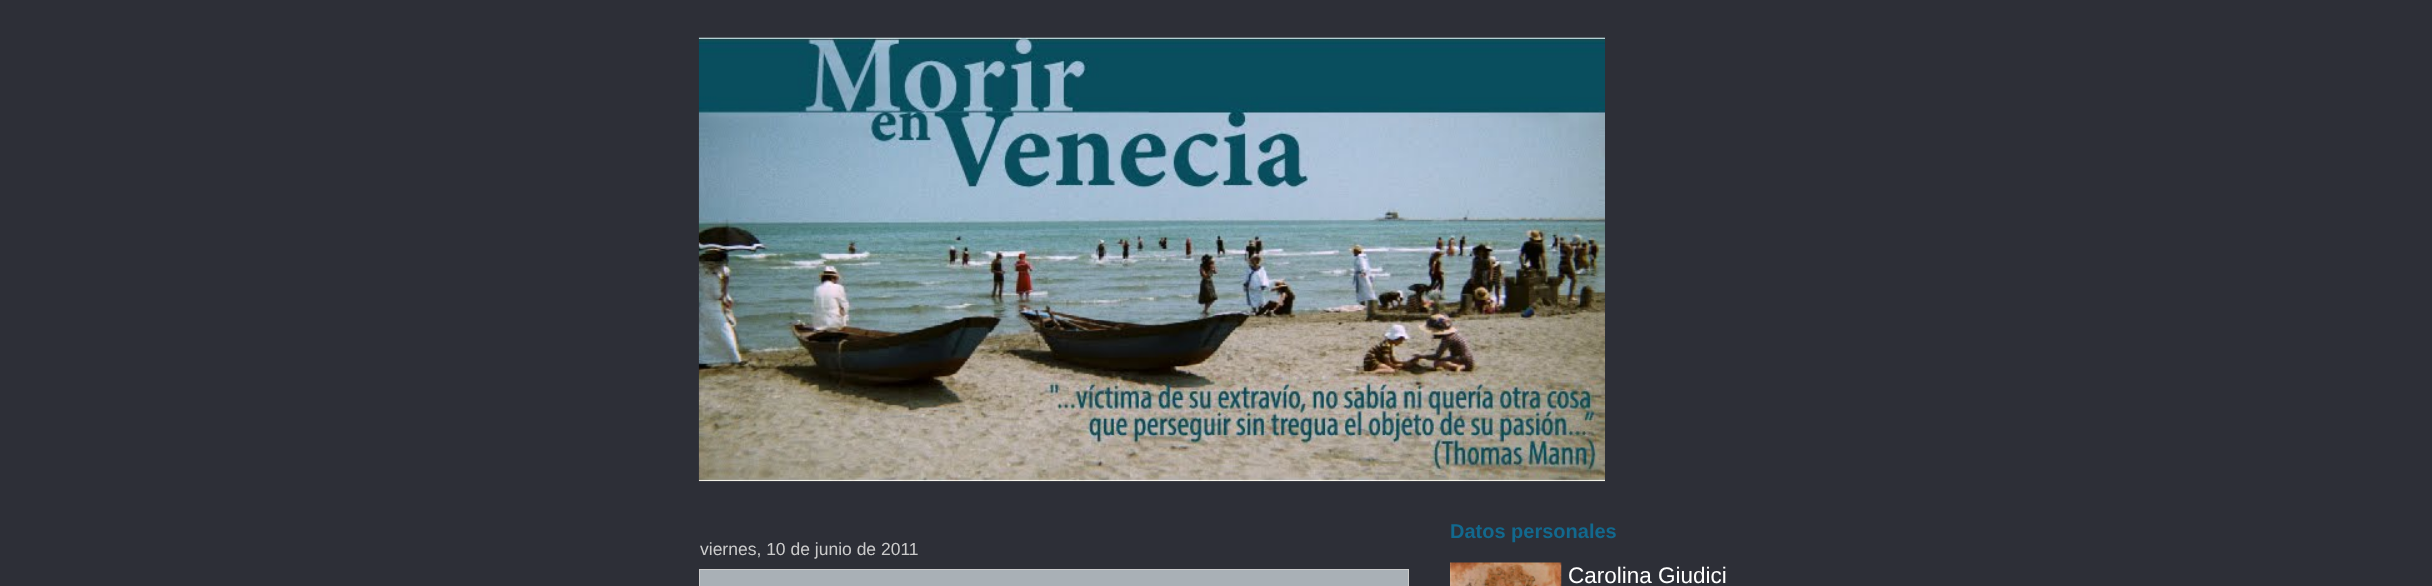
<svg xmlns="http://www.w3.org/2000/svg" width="2432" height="586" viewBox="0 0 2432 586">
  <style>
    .t1 { font: 17.5px Liberation Sans; fill: #ccc; }
    .t2 { font: bold 20px Liberation Sans; fill: #12698e; }
    .t3 { font: 22.5px Liberation Sans; fill: #fff; }
  </style>
  <rect width="100%" height="100%" fill="#2d2f37"/>
  <image x="698" y="37" width="907" height="445" href="images/1.png"/>
  <rect x="699.5" y="569.5" width="709" height="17" fill="#a9b0b6" stroke="#ccc"/>
  <text x="700" y="555" class="t1">viernes, 10 de junio de 2011</text>
  <text x="1450" y="538" class="t2">Datos personales</text>
  <image x="1450" y="562" width="112" height="24" href="images/2.png"/>
  <text x="1568" y="583" class="t3">Carolina Giudici</text>
</svg>
